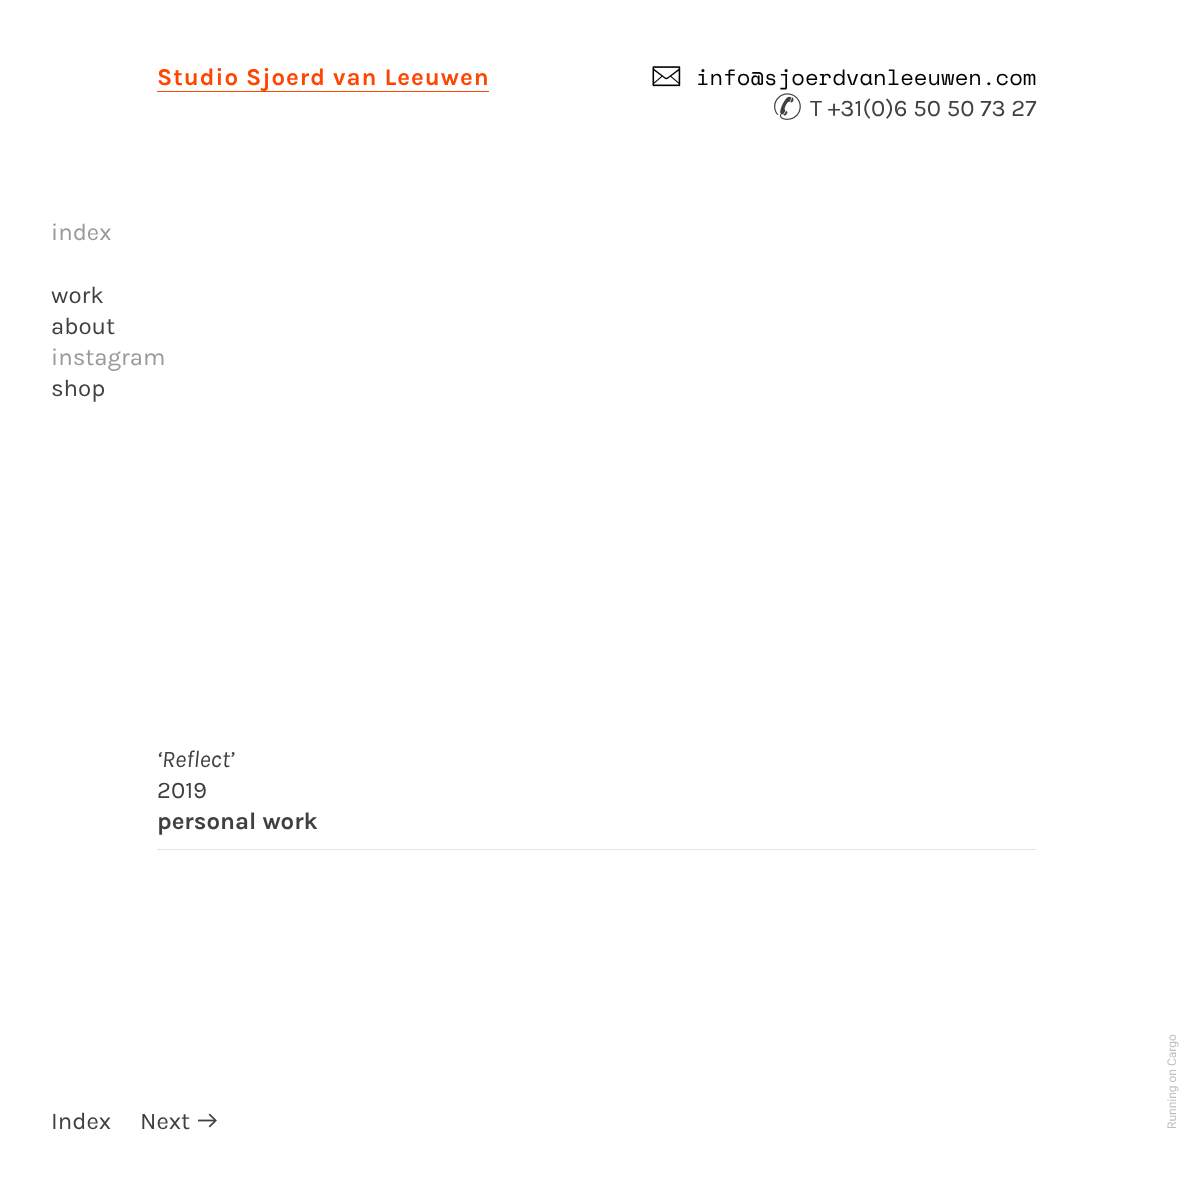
<svg xmlns="http://www.w3.org/2000/svg" width="1193" height="1189" viewBox="0 0 1193 1189">
  <style>
    .t1 { font: 24px Karla; fill: #999; }
    .t2 { font: 24px Karla; fill: #404040; }
    .t3 { font: bold 24px Karla; letter-spacing: 1px; fill: #ff4500; }
    .t4 { font: 22.25px Space Mono; fill: #000; }
    .t5 { font: italic 24px Karla; fill: #404040; }
    .t6 { font: bold 24px Karla; fill: #404040; }
    .t7 { font: 12px Roboto; fill: #bfbfbf; }
  </style>
  <rect width="100%" height="100%" fill="#fff"/>
  <text x="51" y="240" class="t1">index</text>
  <text x="51" y="303" class="t2">work</text>
  <text x="51" y="334" class="t2">about</text>
  <text x="51" y="365" class="t1">instagram</text>
  <text x="51" y="396" class="t2">shop</text>
  <text x="157" y="85" class="t3">Studio Sjoerd van Leeuwen</text>
  <rect x="157" y="91" width="332" height="1" fill="#ff4500"/>
  <image x="652" y="66" width="29" height="21" href="images/1.png"/>
  <text x="696" y="85" class="t4">info@sjoerdvanleeuwen.com</text>
  <image x="774" y="93" width="27" height="27" href="images/2.png"/>
  <text x="810" y="116" class="t2">T +31(0)6 50 50 73 27</text>
  <text x="157" y="767" class="t5">‘Reflect’</text>
  <text x="157" y="798" class="t2">2019</text>
  <text x="157" y="829" class="t6">personal work</text>
  <rect x="157" y="849" width="879" height="1" fill="#e5e5e5"/>
  <text x="51" y="1129" class="t2">Index</text>
  <text x="140" y="1129" class="t2">Next</text>
  <image x="198" y="1113" width="19" height="15" href="images/3.png"/>
  <text x="1176" y="1129" transform="rotate(-90 1176 1129)" class="t7">Running on Cargo</text>
</svg>
